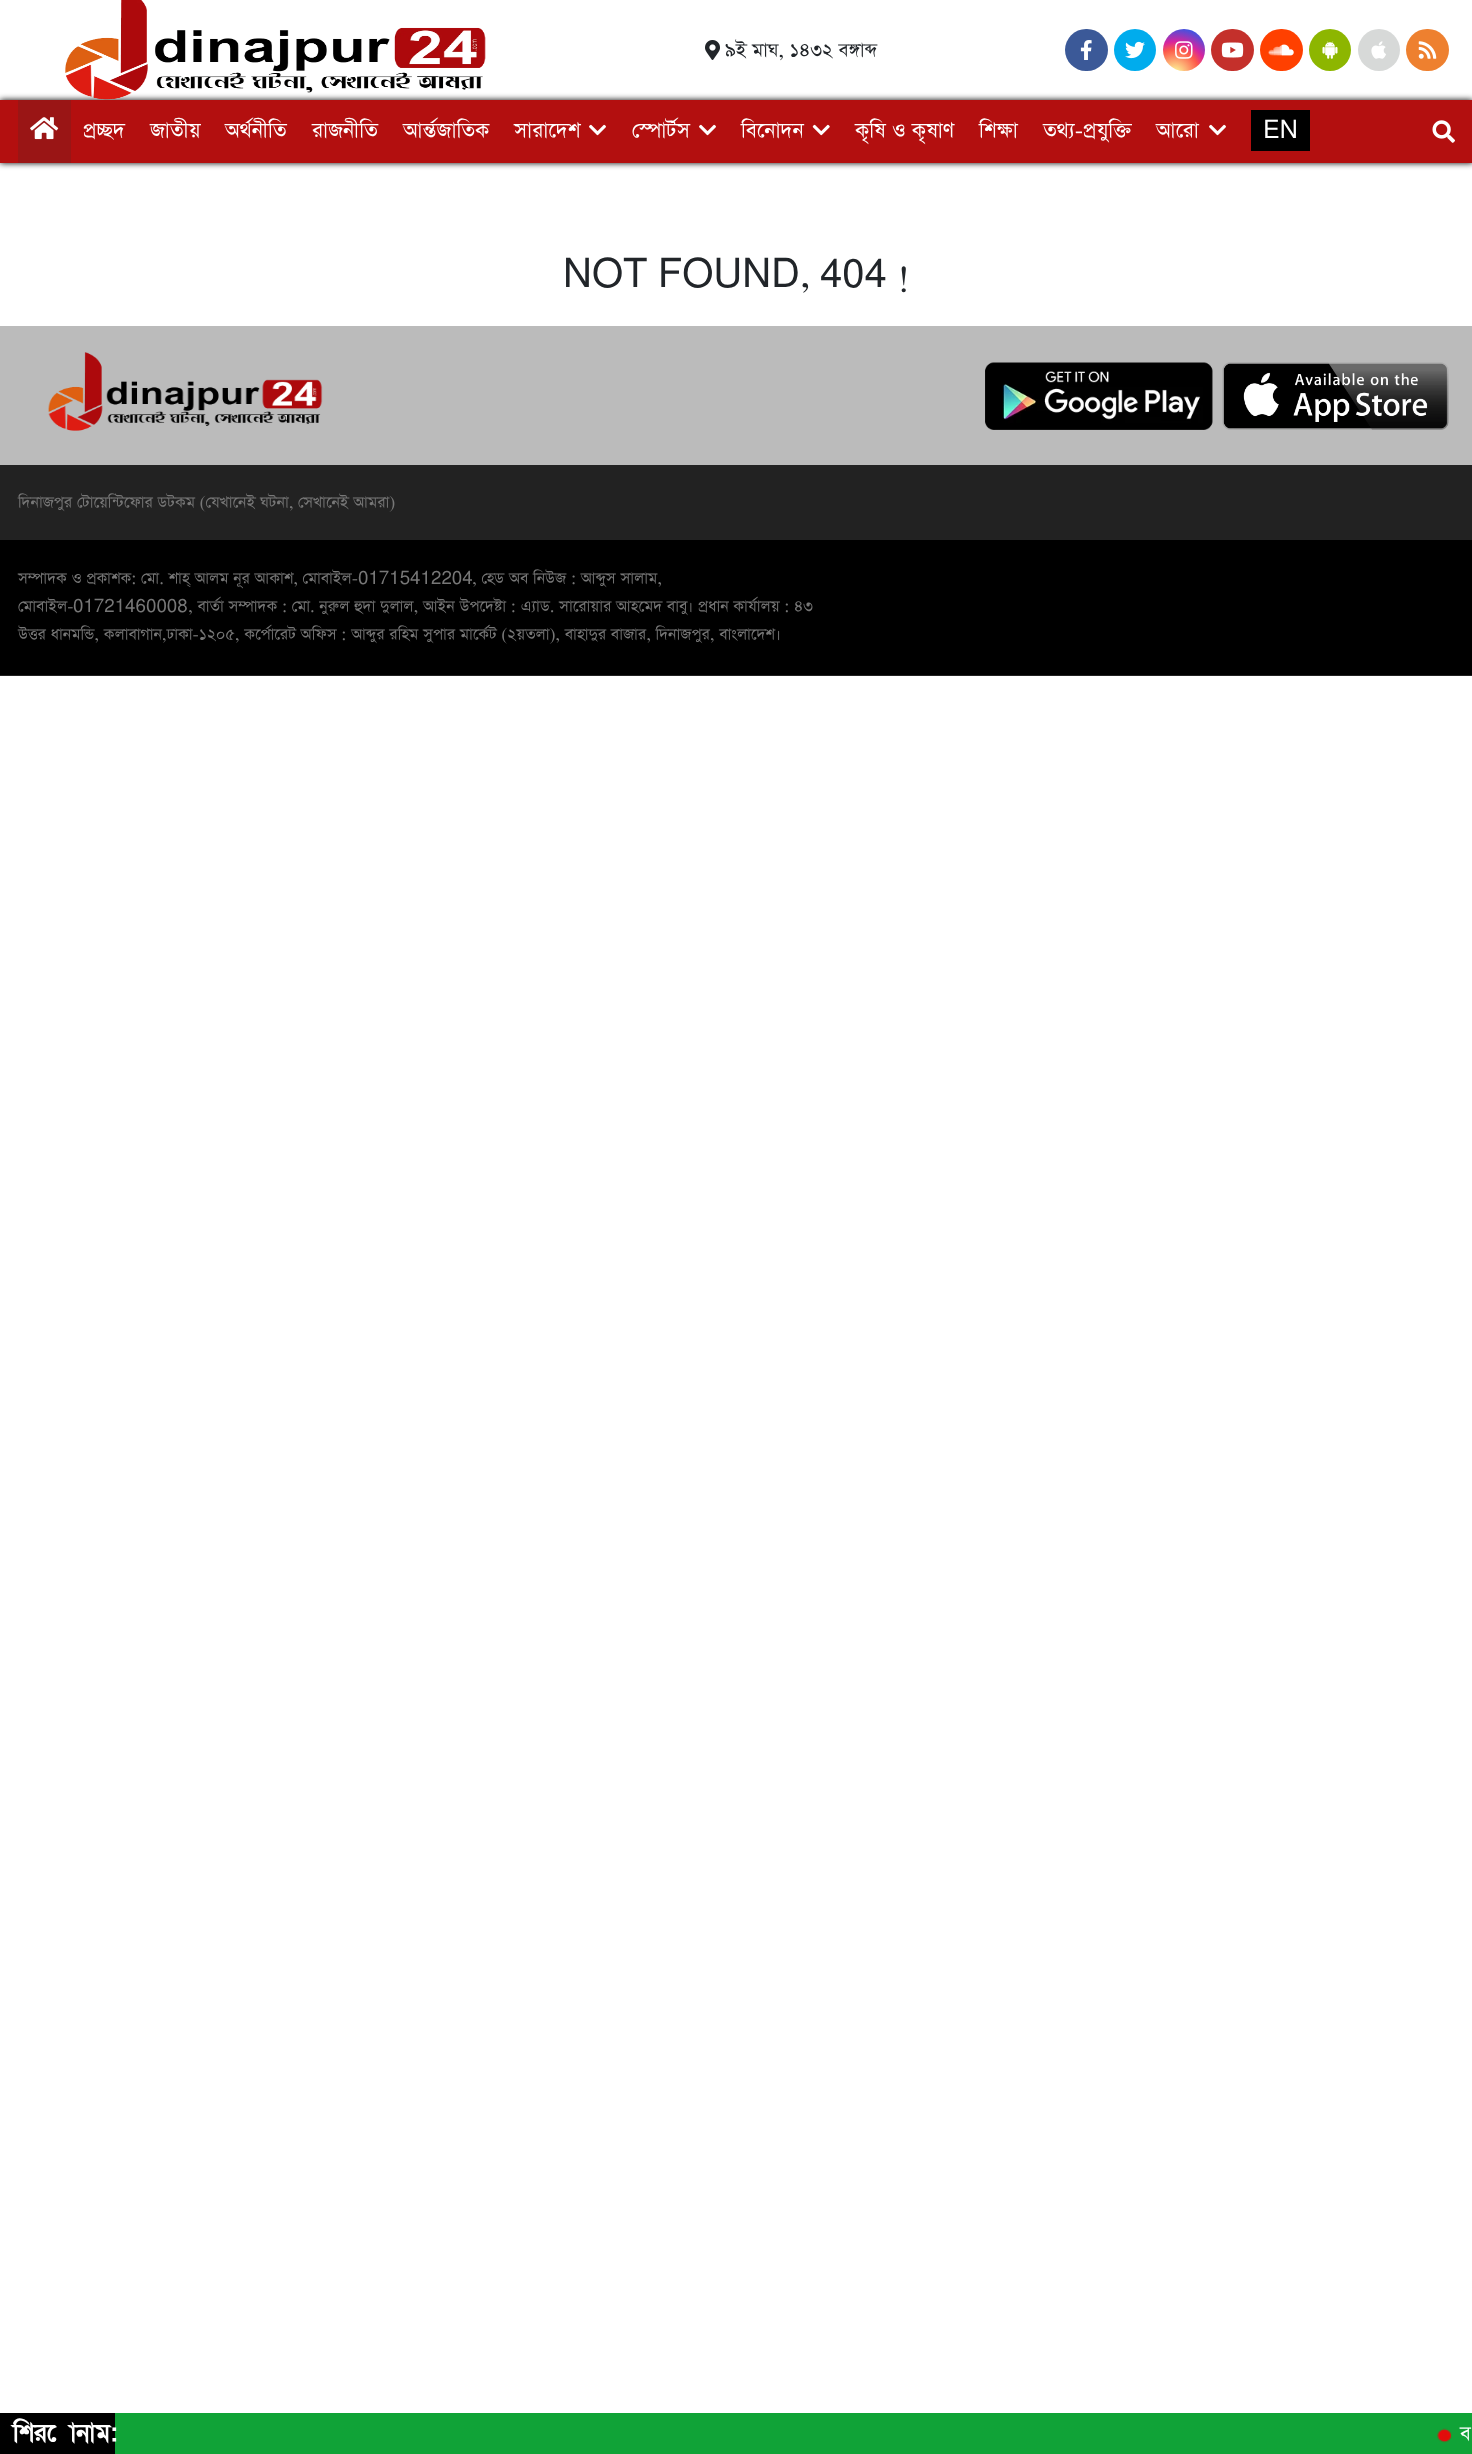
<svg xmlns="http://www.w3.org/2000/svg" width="1472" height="2454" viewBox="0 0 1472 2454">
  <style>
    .t1 { font: 22.5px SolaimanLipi; fill: #212529; }
    .t2 { font: 25px SolaimanLipi; fill: #fff; }
    .t3 { font: 25px 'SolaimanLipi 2'; fill: #fff; }
    .t4 { font: 40px 'SolaimanLipi 2'; fill: #212529; }
    .t5 { font: 40px SolaimanLipi; fill: #212529; }
    .t6 { font: 18.75px SolaimanLipi; fill: #777; }
    .t7 { font: 18.75px 'SolaimanLipi 2'; fill: #777; }
    .t8 { font: bold 25px SolaimanLipi; fill: #fff; }
    .t9 { font: 24px SolaimanLipi; fill: #fff; }
  </style>
  <defs>
    <radialGradient id="g1" gradientUnits="userSpaceOnUse" cx="1175" cy="74" r="54"><stop offset="0" stop-color="#fdf497"/><stop offset="0.05" stop-color="#fdf497"/><stop offset="0.45" stop-color="#fd5949"/><stop offset="0.6" stop-color="#d6249f"/><stop offset="0.9" stop-color="#285aeb"/></radialGradient>
  </defs>
  <rect width="100%" height="100%" fill="#fff"/>
  <rect x="0" y="100" width="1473" height="63" fill="#000" filter="blur(3px)"/>
  <image x="65" y="0" width="421" height="100" href="images/1.png"/>
  <image x="705" y="40" width="15" height="20" href="images/2.png"/>
  <text x="725" y="57" class="t1">৯ই মাঘ, ১৪৩২ বঙ্গাব্দ</text>
  <rect x="1065" y="29" width="43" height="42" rx="21" fill="#3b5998"/>
  <image x="1080" y="40" width="12" height="20" href="images/3.png"/>
  <circle cx="1135" cy="50" r="21" fill="#00aced"/>
  <image x="1125" y="41" width="20" height="18" href="images/4.png"/>
  <circle cx="1184" cy="50" r="21" fill="url(#g1)"/>
  <image x="1175" y="41" width="18" height="18" href="images/5.png"/>
  <rect x="1211" y="29" width="43" height="42" rx="21" fill="#c4302b"/>
  <image x="1221" y="42" width="23" height="16" href="images/6.png"/>
  <rect x="1260" y="29" width="43" height="42" rx="21" fill="#ff4000"/>
  <image x="1268" y="44" width="26" height="12" href="images/7.png"/>
  <circle cx="1330" cy="50" r="21" fill="#8db600"/>
  <image x="1322" y="41" width="16" height="18" href="images/8.png"/>
  <circle cx="1379" cy="50" r="21" fill="#d7d9d8"/>
  <image x="1371" y="41" width="15" height="18" href="images/9.png"/>
  <rect x="1406" y="29" width="43" height="42" rx="21" fill="#ee802f"/>
  <image x="1418" y="41" width="19" height="18" href="images/10.png"/>
  <rect x="0" y="100" width="1472" height="63" fill="#b30f0f"/>
  <rect x="18" y="100" width="53" height="63" fill="#9a1515"/>
  <image x="30" y="117" width="29" height="23" href="images/11.png"/>
  <text x="83" y="138" class="t2">প্রচ্ছদ</text>
  <text x="150" y="138" class="t2">জাতীয়</text>
  <text x="225" y="138" class="t2">অর্থনীতি</text>
  <text x="312" y="138" class="t2">রাজনীতি</text>
  <text x="403" y="138" class="t2">আর্ন্তজাতিক</text>
  <text x="514" y="138" class="t2">সারাদেশ</text>
  <image x="589" y="124" width="17" height="12" href="images/12.png"/>
  <text x="632" y="138" class="t2">স্পোর্টস</text>
  <image x="699" y="124" width="17" height="12" href="images/12.png"/>
  <text x="741" y="138" class="t2">বিনোদন</text>
  <image x="812" y="124" width="18" height="12" href="images/13.png"/>
  <text x="855" y="138" class="t2">কৃষি ও কৃষাণ</text>
  <text x="979" y="138" class="t2">শিক্ষা</text>
  <text x="1043" y="138" class="t2">তথ্য-প্রযুক্তি</text>
  <text x="1156" y="138" class="t2">আরো</text>
  <image x="1209" y="124" width="17" height="12" href="images/12.png"/>
  <rect x="1251" y="110" width="59" height="41" fill="#000"/>
  <text x="1263" y="138" class="t3">EN</text>
  <image x="1432" y="120" width="23" height="23" href="images/14.png"/>
  <text x="563" y="287" class="t4">NOT FOUND</text>
  <text x="800" y="287" class="t5">,</text>
  <text x="820" y="287" class="t4">404</text>
  <text x="897" y="287" class="t5">!</text>
  <rect x="0" y="326" width="1472" height="139" fill="#bbb"/>
  <image x="48" y="352" width="275" height="79" href="images/15.png"/>
  <image x="985" y="362" width="228" height="68" href="images/16.png"/>
  <image x="1222" y="362" width="227" height="68" href="images/17.png"/>
  <rect x="0" y="465" width="1472" height="75" fill="#222"/>
  <text x="18" y="508" class="t6">দিনাজপুর টোয়েন্টিফোর ডটকম (যেখানেই ঘটনা, সেখানেই আমরা)</text>
  <rect x="0" y="540" width="1472" height="135" fill="#000"/>
  <rect x="0" y="675" width="1472" height="1" fill="#222"/>
  <text x="18" y="584" class="t6">সম্পাদক ও প্রকাশক: মো. শাহ্ আলম নূর আকাশ, মোবাইল-</text>
  <text x="358" y="584" class="t7">01715412204</text>
  <text x="472" y="584" class="t6">, হেড অব নিউজ : আব্দুস সালাম,</text>
  <text x="18" y="612" class="t6">মোবাইল-</text>
  <text x="73" y="612" class="t7">01721460008</text>
  <text x="188" y="612" class="t6">, বার্তা সম্পাদক : মো. নুরুল হুদা দুলাল, আইন উপদেষ্টা : এ্যাড. সারোয়ার আহমেদ বাবু। প্রধান কার্যালয় : ৪৩</text>
  <text x="18" y="640" class="t6">উত্তর ধানমন্ডি, কলাবাগান,ঢাকা-১২০৫, কর্পোরেট অফিস : আব্দুর রহিম সুপার মার্কেট (২য়তলা), বাহাদুর বাজার, দিনাজপুর, বাংলাদেশ।</text>
  <rect x="115" y="2413" width="1357" height="41" fill="#10a337"/>
  <rect x="0" y="2413" width="115" height="41" fill="#000"/>
  <text x="13" y="2441" class="t8">শিরোনাম:</text>
  <image x="1437" y="2428" width="15" height="15" href="images/18.png"/>
  <text x="1460" y="2441" class="t9">ব</text>
</svg>
